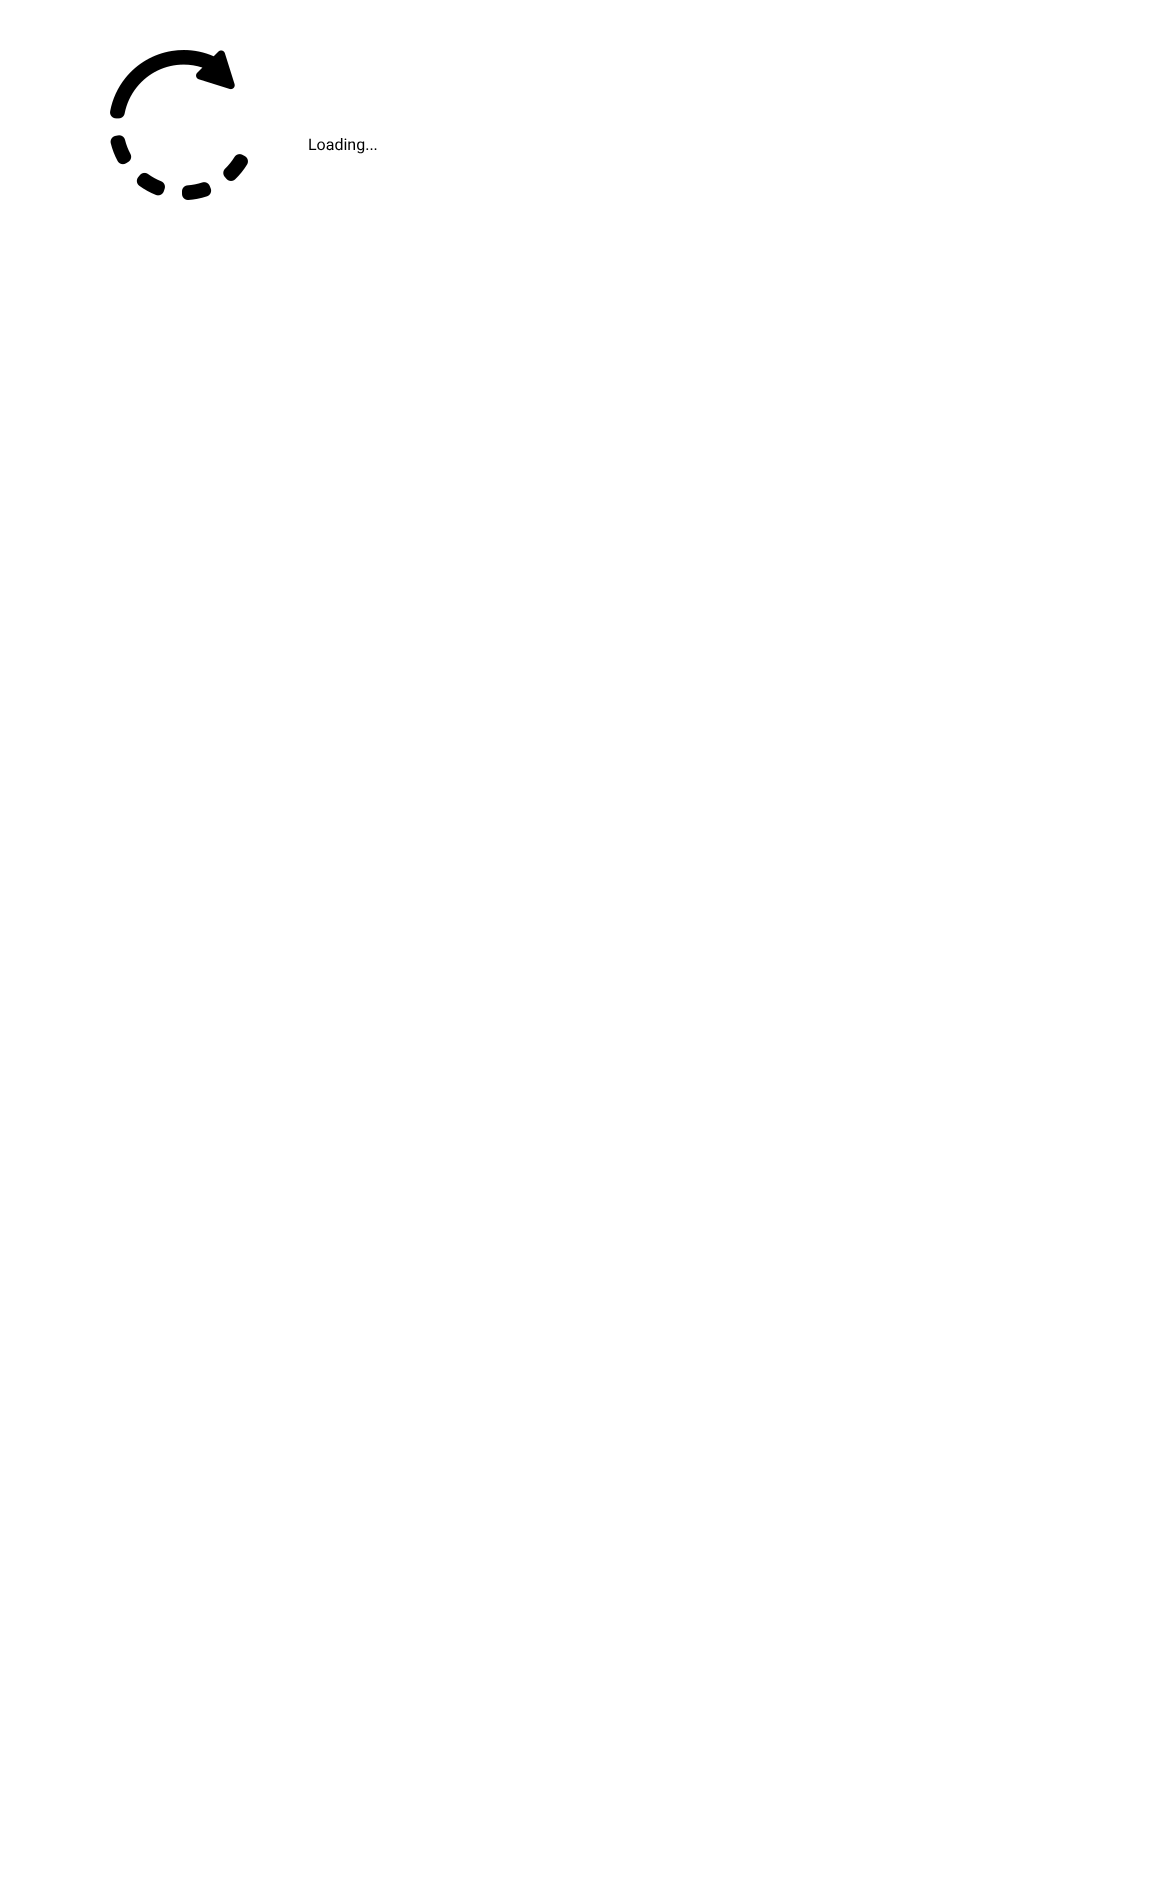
<svg xmlns="http://www.w3.org/2000/svg" width="1168" height="1894" viewBox="0 0 1168 1894">
  <style>
    .t1 { font: 16px Roboto; fill: #000; }
  </style>
  <rect width="100%" height="100%" fill="#fff"/>
  <image x="110" y="50" width="138" height="150" href="images/1.png"/>
  <text x="308" y="150" class="t1">Loading...</text>
</svg>
